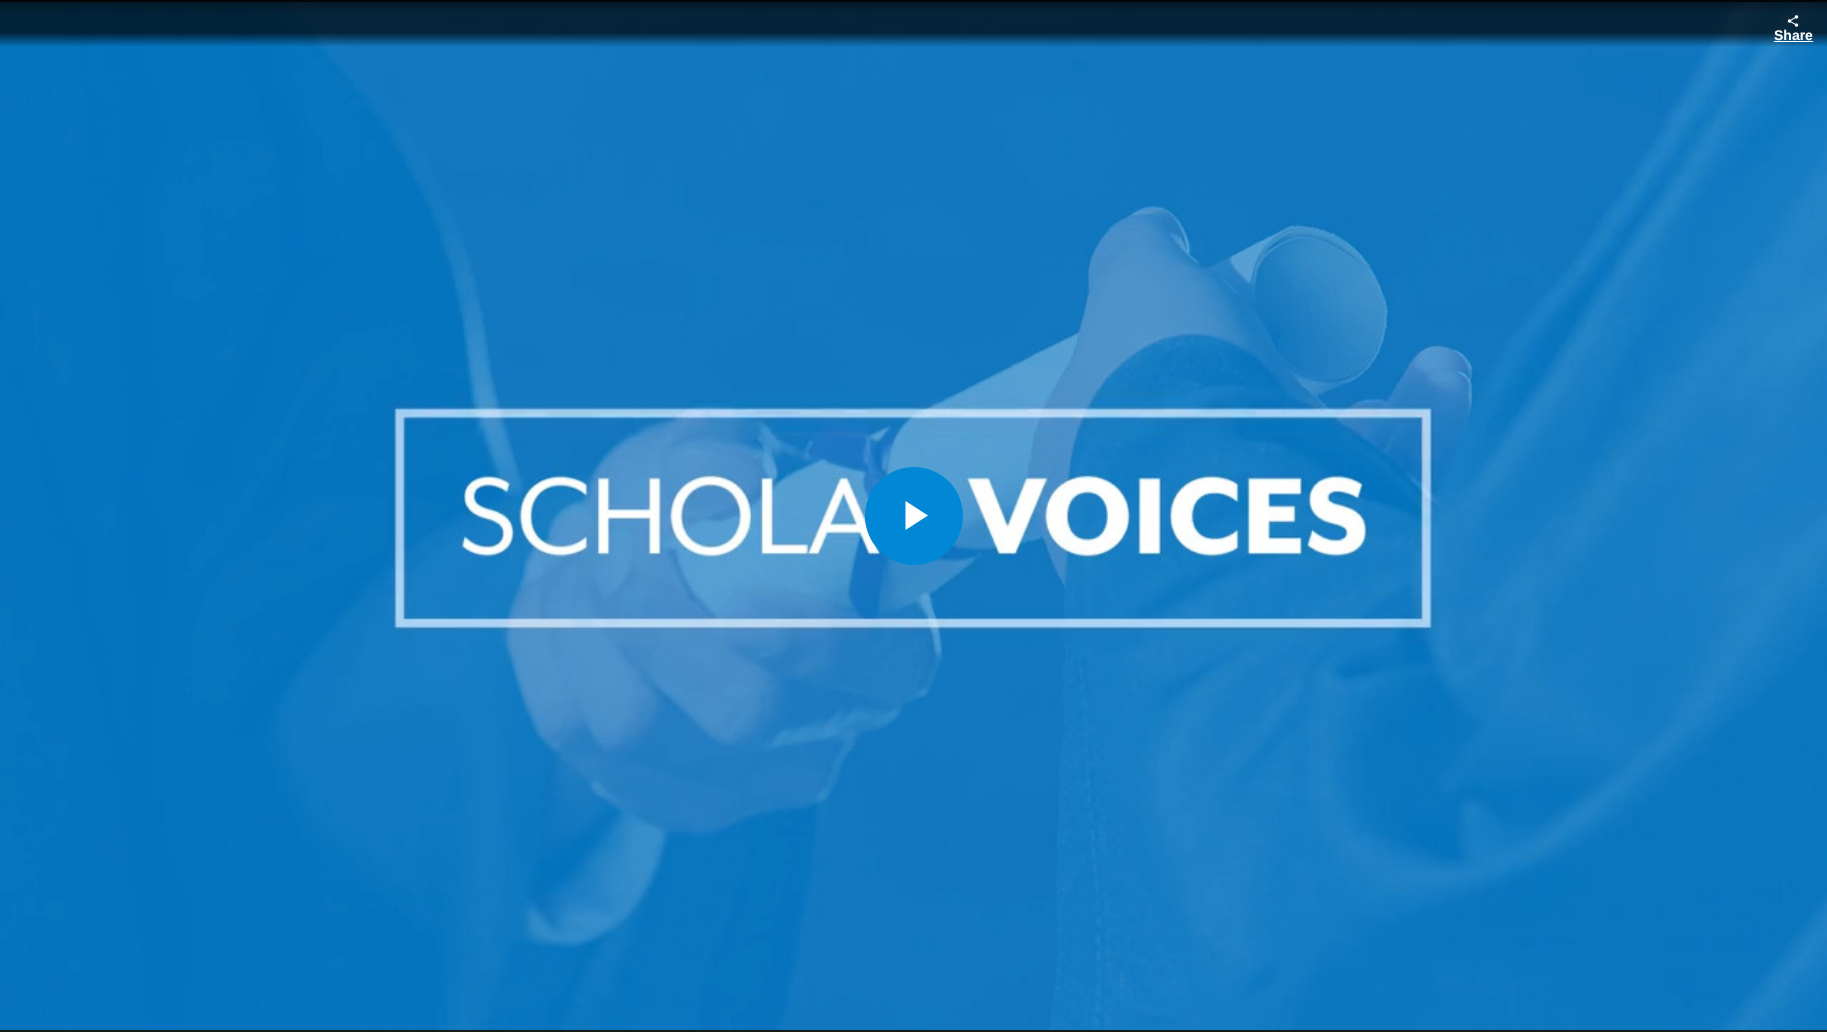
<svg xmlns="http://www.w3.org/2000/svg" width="1827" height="1032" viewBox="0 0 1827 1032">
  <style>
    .t1 { font: bold 14px Liberation Sans; fill: #fff; }
  </style>
  <defs>
    <linearGradient id="g1" gradientUnits="userSpaceOnUse" x1="914" y1="0" x2="914" y2="47"><stop offset="0" stop-color="#000" stop-opacity="0.8"/><stop offset="0.3" stop-color="#000" stop-opacity="0.7"/><stop offset="0.7" stop-color="#000" stop-opacity="0.7"/><stop offset="1" stop-color="#000" stop-opacity="0"/></linearGradient>
  </defs>
  <rect width="100%" height="100%" fill="#151b17"/>
  <image x="0" y="2" width="1827" height="1028" href="images/1.png"/>
  <rect x="0" y="0" width="1827" height="47" fill="url(#g1)"/>
  <image x="1787" y="15" width="12" height="12" href="images/2.png"/>
  <text x="1774" y="40" class="t1">Share</text>
  <rect x="1774" y="41" width="39" height="1" fill="#fff"/>
  <circle cx="914" cy="516" r="49" fill="#0088d6"/>
  <path d="M905.5 501V530L928 515.5Z" fill="#fff"/>
</svg>
